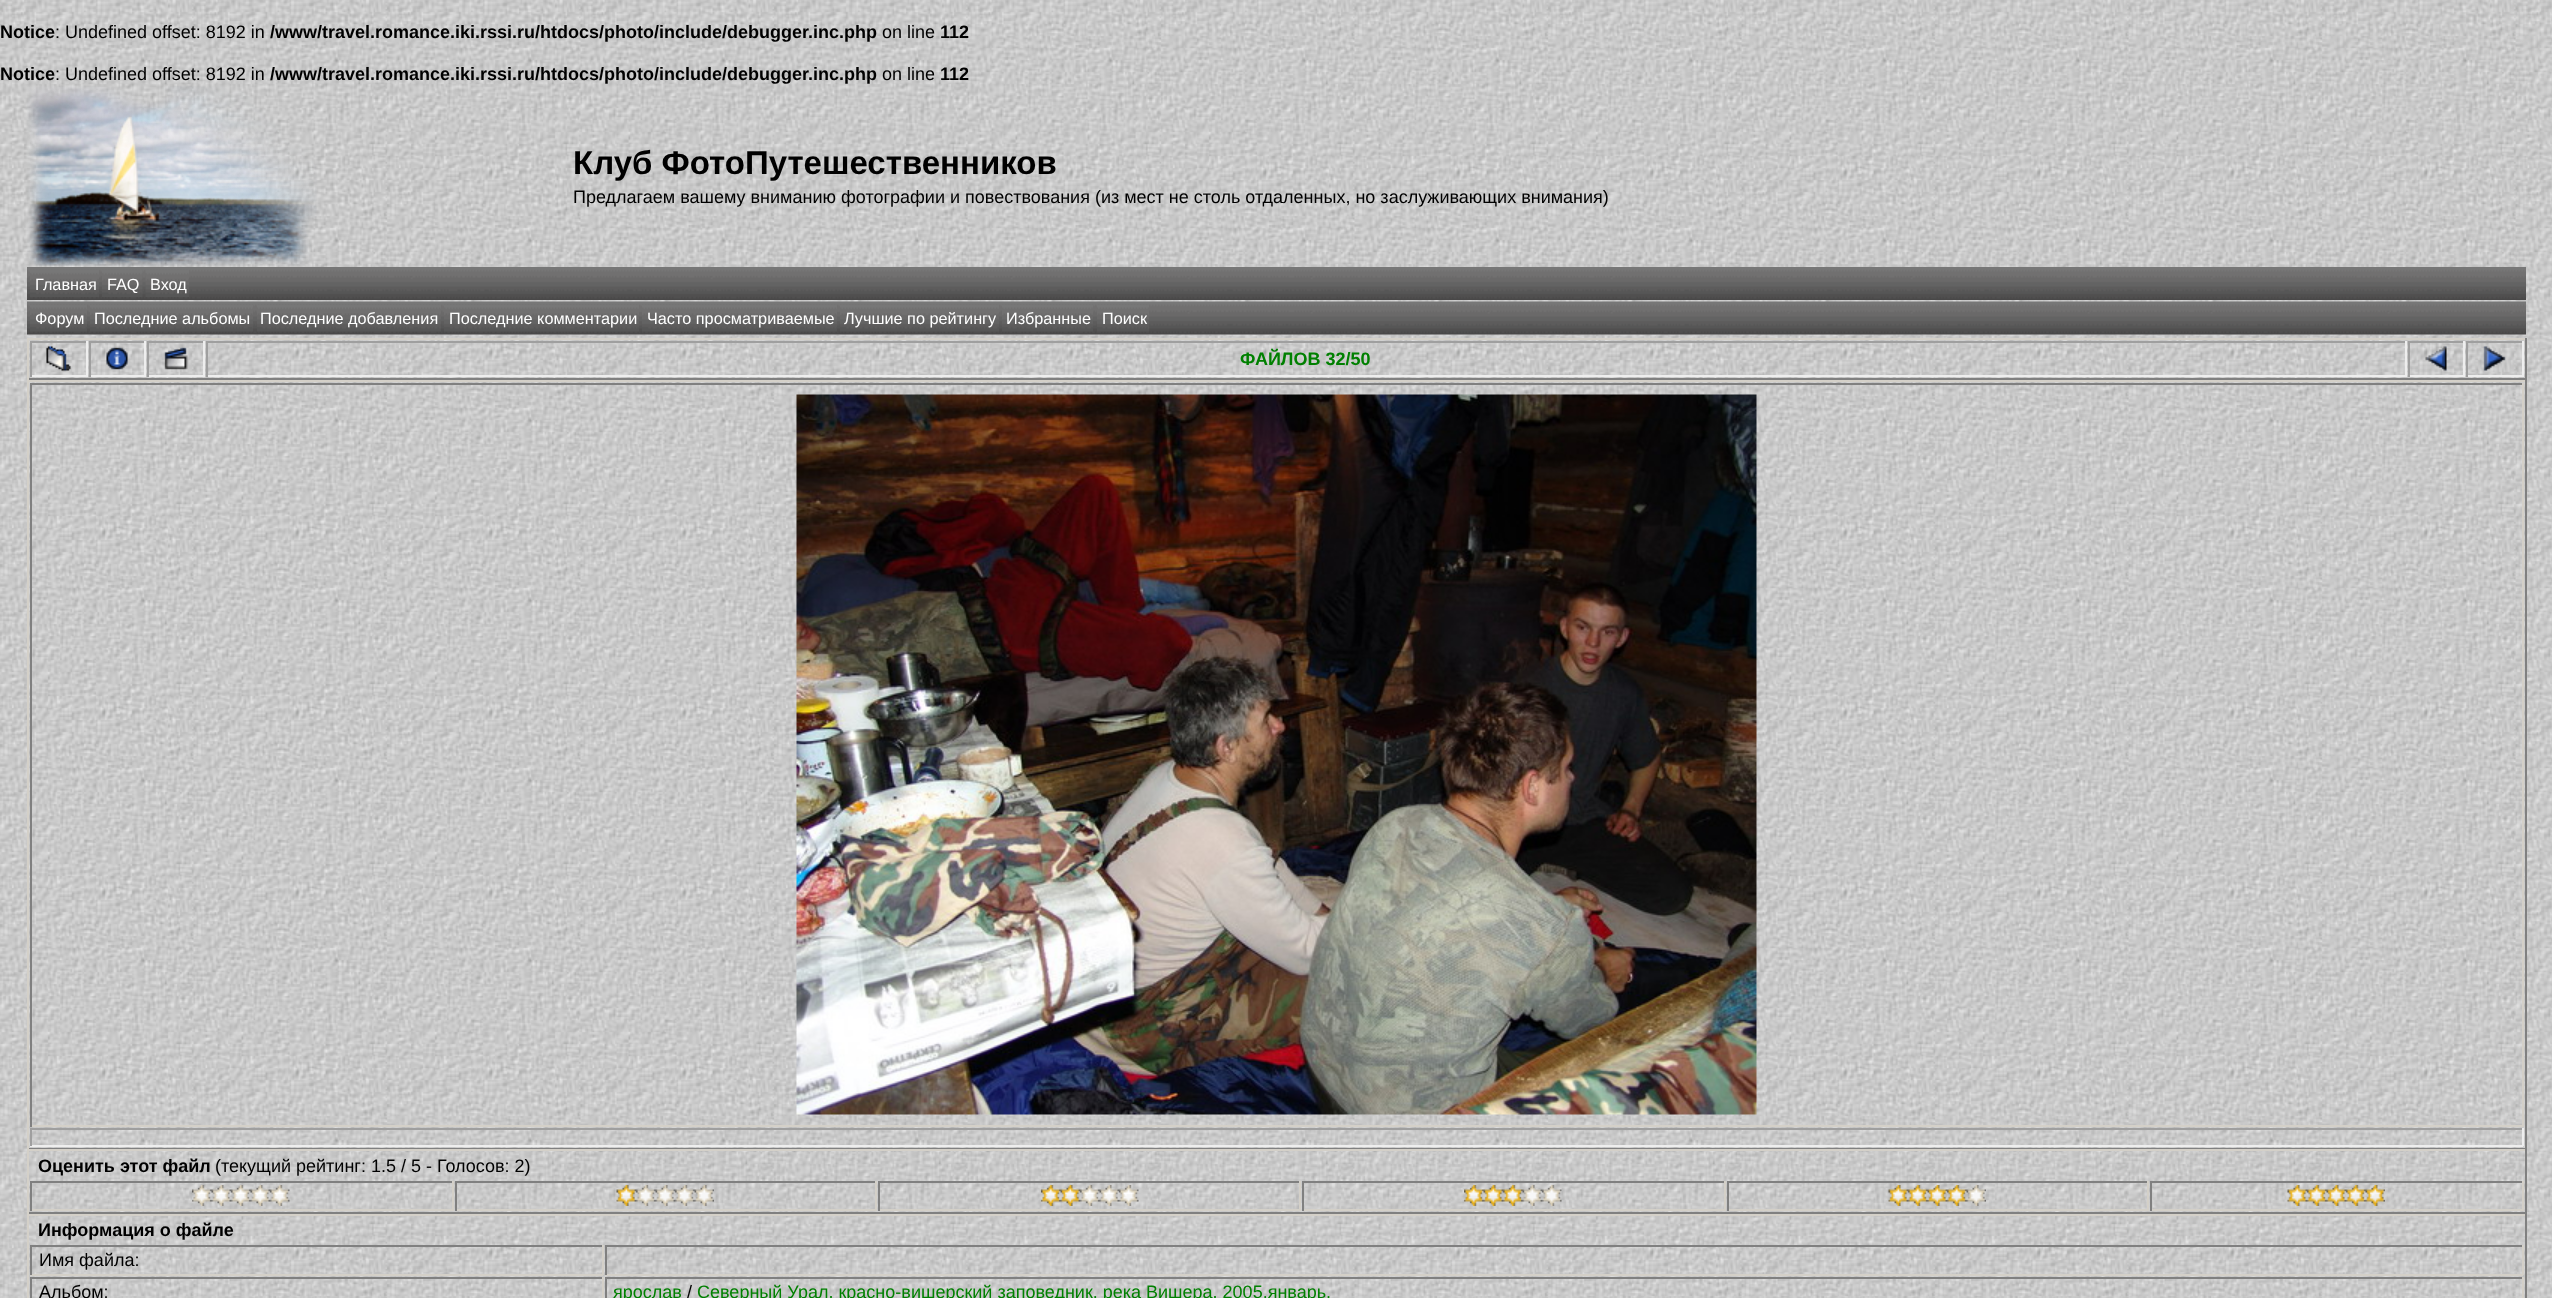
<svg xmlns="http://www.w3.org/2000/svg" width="2552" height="1298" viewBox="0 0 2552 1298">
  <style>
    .t1 { font: bold 18px Liberation Sans; fill: #000; }
    .t2 { font: 18px Liberation Sans; fill: #000; }
    .t3 { font: bold 33px Liberation Sans; fill: #000; }
    .t4 { font: 16.25px Liberation Sans; fill: #fff; }
    .t5 { font: bold 18px Liberation Sans; fill: #008000; }
    .t6 { font: 18px Liberation Sans; fill: #008000; }
  </style>
  <rect width="100%" height="100%" fill="#fff"/>
  <image x="0" y="0" width="2552" height="1298" href="images/1.png"/>
  <text x="0" y="38" class="t1">Notice</text>
  <text x="55" y="38" class="t2">: Undefined offset: 8192 in</text>
  <text x="270" y="38" class="t1">/www/travel.romance.iki.rssi.ru/htdocs/photo/include/debugger.inc.php</text>
  <text x="882" y="38" class="t2">on line</text>
  <text x="940" y="38" class="t1">112</text>
  <text x="0" y="80" class="t1">Notice</text>
  <text x="55" y="80" class="t2">: Undefined offset: 8192 in</text>
  <text x="270" y="80" class="t1">/www/travel.romance.iki.rssi.ru/htdocs/photo/include/debugger.inc.php</text>
  <text x="882" y="80" class="t2">on line</text>
  <text x="940" y="80" class="t1">112</text>
  <image x="27" y="86" width="290" height="180" href="images/2.png"/>
  <text x="573" y="174" class="t3">Клуб ФотоПутешественников</text>
  <text x="573" y="203" class="t2">Предлагаем вашему вниманию фотографии и повествования (из мест не столь отдаленных, но заслуживающих внимания)</text>
  <image x="27" y="267" width="2499" height="33" href="images/3.png"/>
  <image x="30" y="270" width="69" height="27" href="images/4.png"/>
  <text x="35" y="290" class="t4">Главная</text>
  <image x="102" y="270" width="41" height="27" href="images/5.png"/>
  <text x="107" y="290" class="t4">FAQ</text>
  <image x="145" y="270" width="44" height="27" href="images/6.png"/>
  <text x="150" y="290" class="t4">Вход</text>
  <image x="27" y="301" width="2499" height="34" href="images/7.png"/>
  <image x="30" y="305" width="57" height="27" href="images/8.png"/>
  <text x="35" y="324" class="t4">Форум</text>
  <image x="90" y="305" width="163" height="27" href="images/9.png"/>
  <text x="94" y="324" class="t4">Последние альбомы</text>
  <image x="257" y="305" width="184" height="27" href="images/10.png"/>
  <text x="260" y="324" class="t4">Последние добавления</text>
  <image x="444" y="305" width="195" height="27" href="images/11.png"/>
  <text x="449" y="324" class="t4">Последние комментарии</text>
  <image x="642" y="305" width="195" height="27" href="images/12.png"/>
  <text x="647" y="324" class="t4">Часто просматриваемые</text>
  <image x="840" y="305" width="159" height="27" href="images/13.png"/>
  <text x="844" y="324" class="t4">Лучшие по рейтингу</text>
  <image x="1002" y="305" width="91" height="27" href="images/14.png"/>
  <text x="1006" y="324" class="t4">Избранные</text>
  <image x="1097" y="305" width="52" height="27" href="images/15.png"/>
  <text x="1102" y="324" class="t4">Поиск</text>
  <rect x="27" y="338" width="2499" height="2" fill="#d4d0c8"/>
  <rect x="2525" y="338" width="2" height="42" fill="#808080"/>
  <rect x="27" y="378" width="2499" height="2" fill="#808080"/>
  <rect x="27" y="338" width="2" height="42" fill="#d4d0c8"/>
  <rect x="30" y="341" width="57" height="2" fill="#9f9f9f"/>
  <rect x="86" y="341" width="2" height="36" fill="#eee"/>
  <rect x="30" y="375" width="57" height="2" fill="#eee"/>
  <rect x="30" y="341" width="2" height="36" fill="#9f9f9f"/>
  <image x="46" y="346" width="25" height="25" href="images/16.png"/>
  <rect x="89" y="341" width="57" height="2" fill="#9f9f9f"/>
  <rect x="144" y="341" width="2" height="36" fill="#eee"/>
  <rect x="89" y="375" width="57" height="2" fill="#eee"/>
  <rect x="89" y="341" width="2" height="36" fill="#9f9f9f"/>
  <image x="106" y="347" width="22" height="23" href="images/17.png"/>
  <rect x="147" y="341" width="57" height="2" fill="#9f9f9f"/>
  <rect x="203" y="341" width="2" height="36" fill="#eee"/>
  <rect x="147" y="375" width="57" height="2" fill="#eee"/>
  <rect x="147" y="341" width="2" height="36" fill="#9f9f9f"/>
  <image x="164" y="347" width="24" height="23" href="images/18.png"/>
  <rect x="206" y="341" width="2200" height="2" fill="#9f9f9f"/>
  <rect x="2405" y="341" width="2" height="36" fill="#eee"/>
  <rect x="206" y="375" width="2200" height="2" fill="#eee"/>
  <rect x="206" y="341" width="2" height="36" fill="#9f9f9f"/>
  <text x="1240" y="365" class="t5">ФАЙЛОВ 32/50</text>
  <rect x="2408" y="341" width="57" height="2" fill="#9f9f9f"/>
  <rect x="2463" y="341" width="2" height="36" fill="#eee"/>
  <rect x="2408" y="375" width="57" height="2" fill="#eee"/>
  <rect x="2408" y="341" width="2" height="36" fill="#9f9f9f"/>
  <image x="2425" y="346" width="22" height="25" href="images/19.png"/>
  <rect x="2466" y="341" width="57" height="2" fill="#9f9f9f"/>
  <rect x="2522" y="341" width="2" height="36" fill="#eee"/>
  <rect x="2466" y="375" width="57" height="2" fill="#eee"/>
  <rect x="2466" y="341" width="2" height="36" fill="#9f9f9f"/>
  <image x="2483" y="346" width="23" height="25" href="images/20.png"/>
  <rect x="27" y="380" width="2499" height="2" fill="#d4d0c8"/>
  <rect x="2525" y="380" width="2" height="769" fill="#808080"/>
  <rect x="27" y="1148" width="2499" height="1" fill="#808080"/>
  <rect x="27" y="380" width="2" height="769" fill="#d4d0c8"/>
  <rect x="30" y="383" width="2493" height="2" fill="#808080"/>
  <rect x="2522" y="383" width="2" height="744" fill="#d4d0c8"/>
  <rect x="30" y="1125" width="2493" height="2" fill="#d4d0c8"/>
  <rect x="30" y="383" width="2" height="744" fill="#808080"/>
  <image x="796" y="394" width="961" height="721" href="images/21.png"/>
  <rect x="30" y="1128" width="2493" height="2" fill="#9f9f9f"/>
  <rect x="2522" y="1128" width="2" height="18" fill="#eee"/>
  <rect x="30" y="1145" width="2493" height="2" fill="#eee"/>
  <rect x="30" y="1128" width="2" height="18" fill="#9f9f9f"/>
  <rect x="27" y="1149" width="2499" height="2" fill="#d4d0c8"/>
  <rect x="2525" y="1149" width="2" height="65" fill="#808080"/>
  <rect x="27" y="1212" width="2499" height="2" fill="#808080"/>
  <rect x="27" y="1149" width="2" height="65" fill="#d4d0c8"/>
  <text x="38" y="1172" class="t1">Оценить этот файл</text>
  <text x="215" y="1172" class="t2">(текущий рейтинг: 1.5 / 5 - Голосов: 2)</text>
  <rect x="30" y="1181" width="423" height="2" fill="#808080"/>
  <rect x="452" y="1181" width="2" height="30" fill="#d4d0c8"/>
  <rect x="30" y="1209" width="423" height="2" fill="#d4d0c8"/>
  <rect x="30" y="1181" width="2" height="30" fill="#808080"/>
  <image x="192" y="1185" width="98" height="21" href="images/22.png"/>
  <rect x="455" y="1181" width="421" height="2" fill="#808080"/>
  <rect x="875" y="1181" width="2" height="30" fill="#d4d0c8"/>
  <rect x="455" y="1209" width="421" height="2" fill="#d4d0c8"/>
  <rect x="455" y="1181" width="2" height="30" fill="#808080"/>
  <image x="616" y="1185" width="98" height="21" href="images/23.png"/>
  <rect x="878" y="1181" width="423" height="2" fill="#808080"/>
  <rect x="1299" y="1181" width="2" height="30" fill="#d4d0c8"/>
  <rect x="878" y="1209" width="423" height="2" fill="#d4d0c8"/>
  <rect x="878" y="1181" width="2" height="30" fill="#808080"/>
  <image x="1041" y="1185" width="98" height="21" href="images/24.png"/>
  <rect x="1302" y="1181" width="423" height="2" fill="#808080"/>
  <rect x="1724" y="1181" width="2" height="30" fill="#d4d0c8"/>
  <rect x="1302" y="1209" width="423" height="2" fill="#d4d0c8"/>
  <rect x="1302" y="1181" width="2" height="30" fill="#808080"/>
  <image x="1464" y="1185" width="98" height="21" href="images/25.png"/>
  <rect x="1727" y="1181" width="421" height="2" fill="#808080"/>
  <rect x="2147" y="1181" width="2" height="30" fill="#d4d0c8"/>
  <rect x="1727" y="1209" width="421" height="2" fill="#d4d0c8"/>
  <rect x="1727" y="1181" width="2" height="30" fill="#808080"/>
  <image x="1888" y="1185" width="98" height="21" href="images/26.png"/>
  <rect x="2150" y="1181" width="373" height="2" fill="#808080"/>
  <rect x="2522" y="1181" width="2" height="30" fill="#d4d0c8"/>
  <rect x="2150" y="1209" width="373" height="2" fill="#d4d0c8"/>
  <rect x="2150" y="1181" width="2" height="30" fill="#808080"/>
  <image x="2287" y="1185" width="98" height="21" href="images/27.png"/>
  <rect x="27" y="1214" width="2499" height="2" fill="#d4d0c8"/>
  <rect x="2525" y="1214" width="2" height="84" fill="#808080"/>
  <rect x="27" y="1214" width="2" height="84" fill="#d4d0c8"/>
  <text x="38" y="1236" class="t1">Информация о файле</text>
  <rect x="30" y="1245" width="573" height="2" fill="#808080"/>
  <rect x="602" y="1245" width="2" height="30" fill="#d4d0c8"/>
  <rect x="30" y="1274" width="573" height="2" fill="#d4d0c8"/>
  <rect x="30" y="1245" width="2" height="30" fill="#808080"/>
  <text x="39" y="1266" class="t2">Имя файла:</text>
  <rect x="605" y="1245" width="1918" height="2" fill="#808080"/>
  <rect x="2522" y="1245" width="2" height="30" fill="#d4d0c8"/>
  <rect x="605" y="1274" width="1918" height="2" fill="#d4d0c8"/>
  <rect x="605" y="1245" width="2" height="30" fill="#808080"/>
  <rect x="30" y="1277" width="573" height="2" fill="#808080"/>
  <rect x="602" y="1277" width="2" height="21" fill="#d4d0c8"/>
  <rect x="30" y="1277" width="2" height="21" fill="#808080"/>
  <text x="39" y="1298" class="t2">Альбом:</text>
  <rect x="605" y="1277" width="1918" height="2" fill="#808080"/>
  <rect x="2522" y="1277" width="2" height="21" fill="#d4d0c8"/>
  <rect x="605" y="1277" width="2" height="21" fill="#808080"/>
  <text x="613" y="1298" class="t6">ярослав</text>
  <text x="687" y="1298" class="t2">/</text>
  <text x="697" y="1298" class="t6">Северный Урал. красно-вишерский заповедник. река Вишера. 2005.январь.</text>
</svg>
